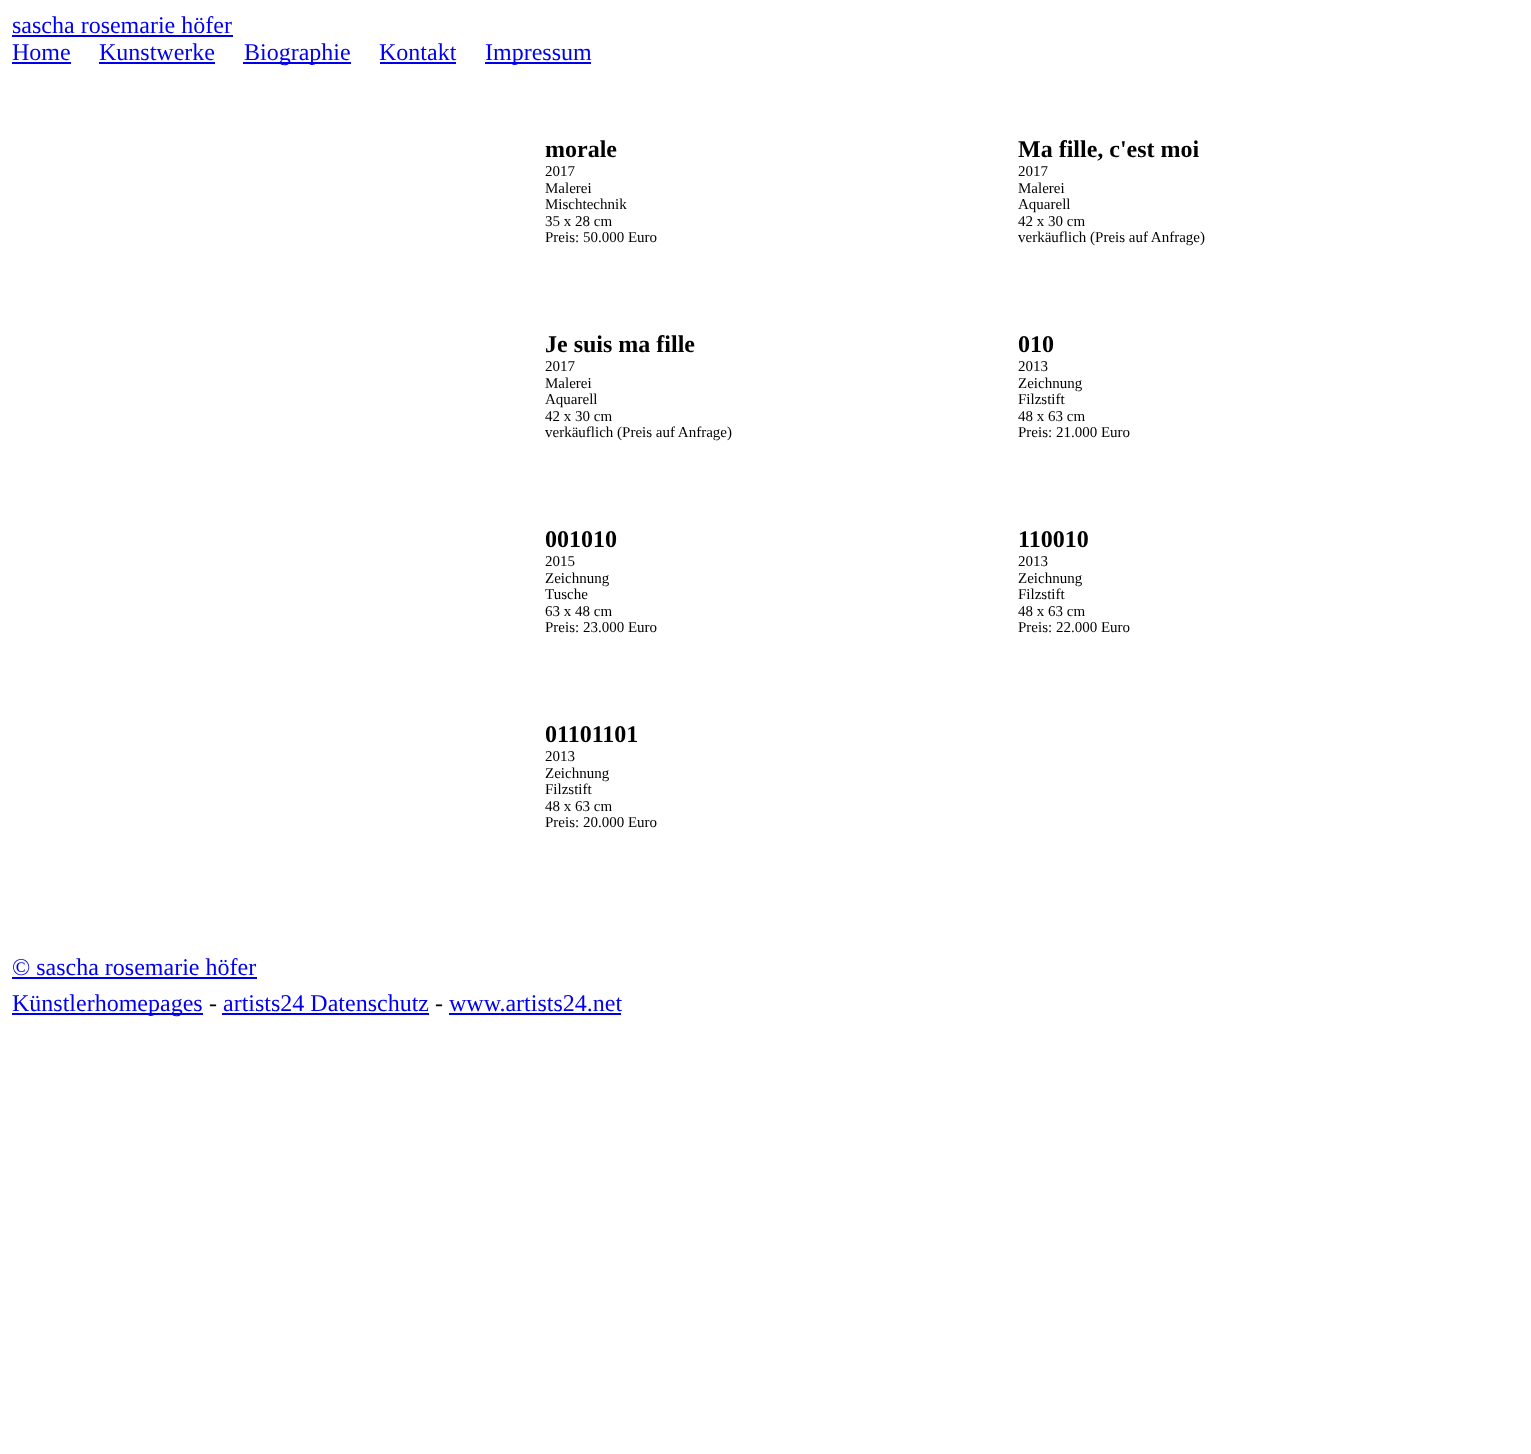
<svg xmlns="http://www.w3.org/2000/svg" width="1531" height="1454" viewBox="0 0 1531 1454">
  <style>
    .t1 { font: 24px Liberation Serif; fill: #00e; }
    .t2 { font: bold 24px Liberation Serif; fill: #000; }
    .t3 { font: 15px Liberation Serif; fill: #000; }
    .t4 { font: 24px Liberation Serif; fill: #000; }
  </style>
  <rect width="100%" height="100%" fill="#fff"/>
  <text x="12" y="33" class="t1">sascha rosemarie höfer</text>
  <rect x="12" y="35" width="221" height="2" fill="#00e"/>
  <text x="12" y="60" class="t1">Home</text>
  <rect x="12" y="62" width="59" height="2" fill="#00e"/>
  <text x="99" y="60" class="t1">Kunstwerke</text>
  <rect x="99" y="62" width="116" height="2" fill="#00e"/>
  <rect x="243" y="62" width="108" height="2" fill="#00e"/>
  <text x="244" y="60" class="t1">Biographie</text>
  <text x="379" y="60" class="t1">Kontakt</text>
  <rect x="380" y="62" width="76" height="2" fill="#00e"/>
  <rect x="485" y="62" width="106" height="2" fill="#00e"/>
  <text x="485" y="60" class="t1">Impressum</text>
  <text x="545" y="157" class="t2">morale</text>
  <text x="545" y="176" class="t3">2017</text>
  <text x="545" y="193" class="t3">Malerei</text>
  <text x="545" y="209" class="t3">Mischtechnik</text>
  <text x="545" y="226" class="t3">35 x 28 cm</text>
  <text x="545" y="242" class="t3">Preis: 50.000 Euro</text>
  <text x="1018" y="157" class="t2">Ma fille, c'est moi</text>
  <text x="1018" y="176" class="t3">2017</text>
  <text x="1018" y="193" class="t3">Malerei</text>
  <text x="1018" y="209" class="t3">Aquarell</text>
  <text x="1018" y="226" class="t3">42 x 30 cm</text>
  <text x="1018" y="242" class="t3">verkäuflich (Preis auf Anfrage)</text>
  <text x="545" y="352" class="t2">Je suis ma fille</text>
  <text x="545" y="371" class="t3">2017</text>
  <text x="545" y="388" class="t3">Malerei</text>
  <text x="545" y="404" class="t3">Aquarell</text>
  <text x="545" y="421" class="t3">42 x 30 cm</text>
  <text x="545" y="437" class="t3">verkäuflich (Preis auf Anfrage)</text>
  <text x="1018" y="352" class="t2">010</text>
  <text x="1018" y="371" class="t3">2013</text>
  <text x="1018" y="388" class="t3">Zeichnung</text>
  <text x="1018" y="404" class="t3">Filzstift</text>
  <text x="1018" y="421" class="t3">48 x 63 cm</text>
  <text x="1018" y="437" class="t3">Preis: 21.000 Euro</text>
  <text x="545" y="547" class="t2">001010</text>
  <text x="545" y="566" class="t3">2015</text>
  <text x="545" y="583" class="t3">Zeichnung</text>
  <text x="545" y="599" class="t3">Tusche</text>
  <text x="545" y="616" class="t3">63 x 48 cm</text>
  <text x="545" y="632" class="t3">Preis: 23.000 Euro</text>
  <text x="1018" y="547" class="t2">110010</text>
  <text x="1018" y="566" class="t3">2013</text>
  <text x="1018" y="583" class="t3">Zeichnung</text>
  <text x="1018" y="599" class="t3">Filzstift</text>
  <text x="1018" y="616" class="t3">48 x 63 cm</text>
  <text x="1018" y="632" class="t3">Preis: 22.000 Euro</text>
  <text x="545" y="742" class="t2">01101101</text>
  <text x="545" y="761" class="t3">2013</text>
  <text x="545" y="778" class="t3">Zeichnung</text>
  <text x="545" y="794" class="t3">Filzstift</text>
  <text x="545" y="811" class="t3">48 x 63 cm</text>
  <text x="545" y="827" class="t3">Preis: 20.000 Euro</text>
  <text x="12" y="975" class="t1">© sascha rosemarie höfer</text>
  <rect x="12" y="977" width="245" height="2" fill="#00e"/>
  <rect x="12" y="1013" width="191" height="2" fill="#00e"/>
  <text x="12" y="1011" class="t1">Künstlerhomepages</text>
  <text x="209" y="1011" class="t4">-</text>
  <text x="223" y="1011" class="t1">artists24 Datenschutz</text>
  <rect x="222" y="1013" width="207" height="2" fill="#00e"/>
  <text x="435" y="1011" class="t4">-</text>
  <text x="449" y="1011" class="t1">www.artists24.net</text>
  <rect x="449" y="1013" width="172" height="2" fill="#00e"/>
</svg>
